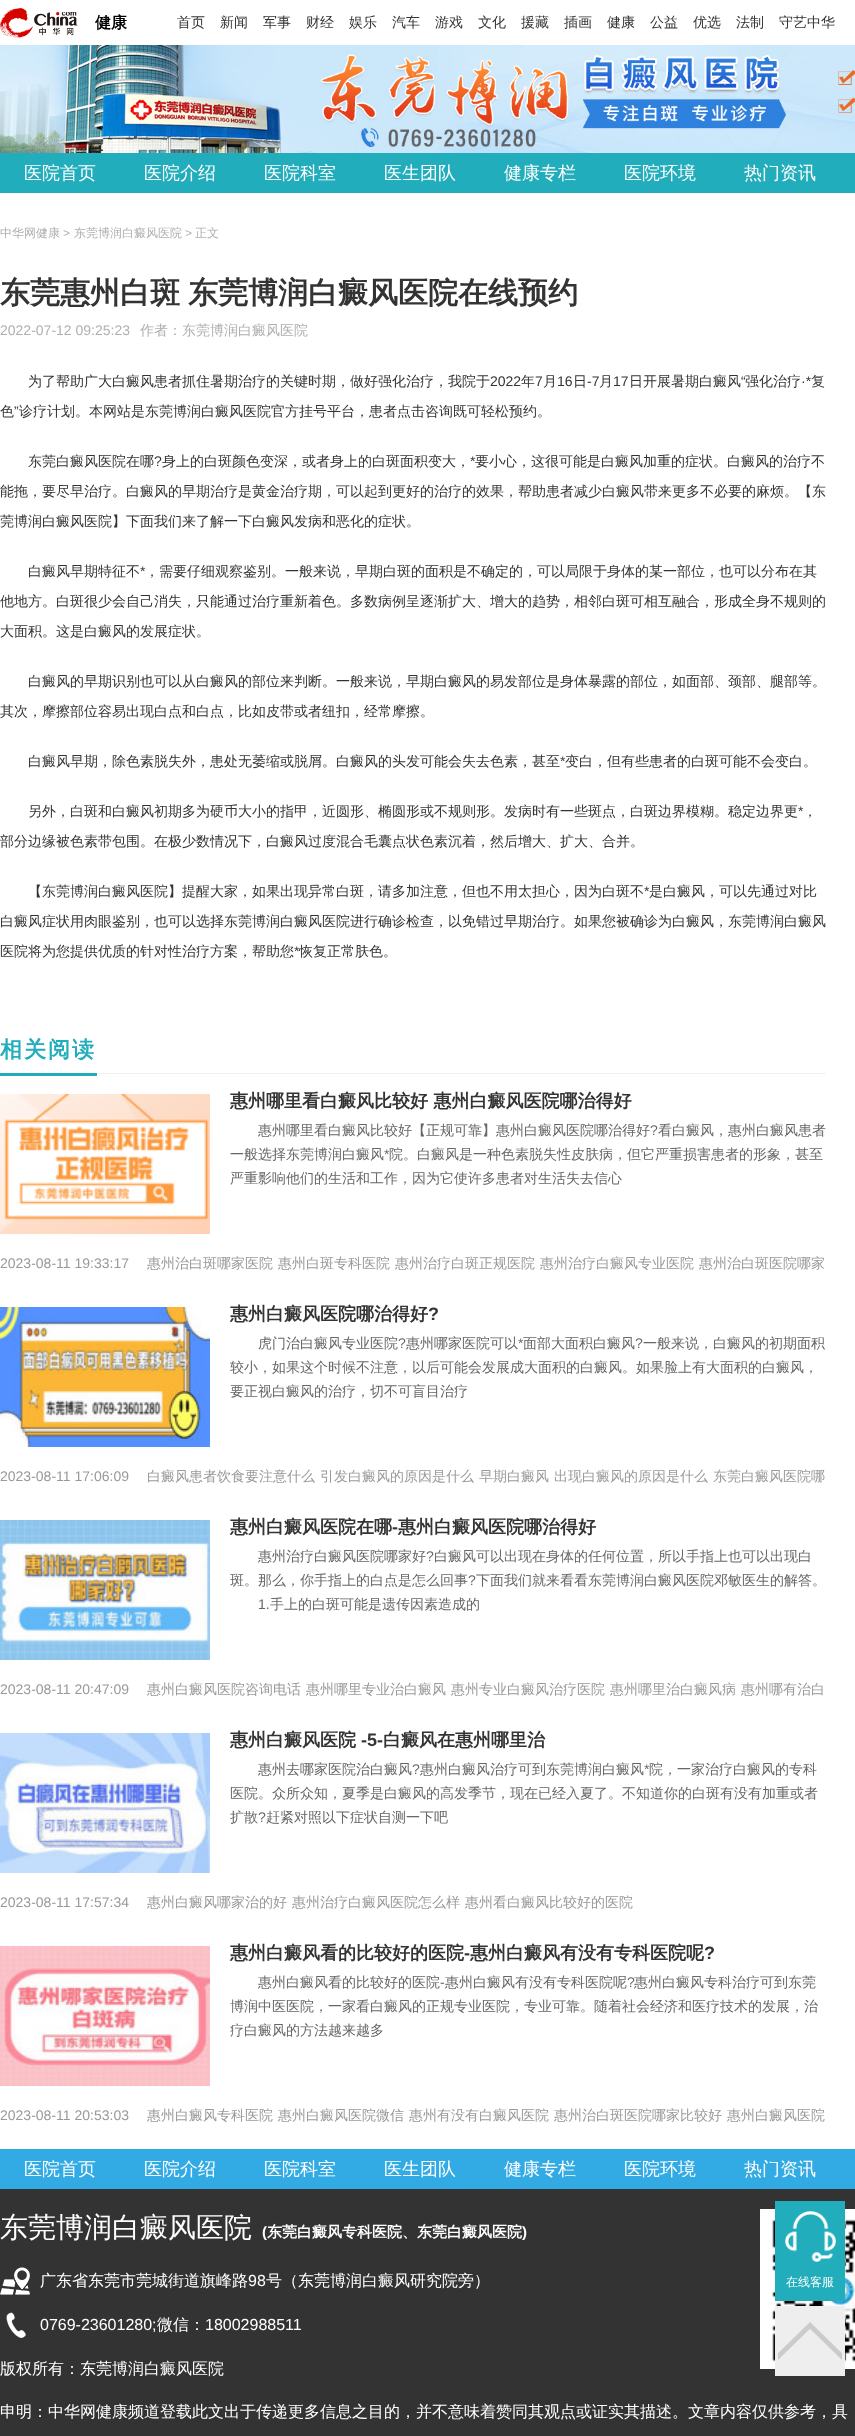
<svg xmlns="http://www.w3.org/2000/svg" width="855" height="2436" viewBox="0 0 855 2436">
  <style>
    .t1 { font: bold 16px WenQuanYi Zen Hei; fill: #000; }
    .t2 { font: 500 14px WenQuanYi Zen Hei; fill: #333; }
    .t3 { font: 500 18px WenQuanYi Zen Hei; fill: #fff; }
    .t4 { font: 500 12px WenQuanYi Zen Hei; fill: #afafaf; }
    .t5 { font: 12px Liberation Sans; fill: #afafaf; }
    .t6 { font: bold 30px WenQuanYi Zen Hei; fill: #333; }
    .t7 { font: 14px Liberation Sans; fill: #afafaf; }
    .t8 { font: 500 14px WenQuanYi Zen Hei; fill: #afafaf; }
    .t9 { font: 14px Liberation Sans; fill: #333; }
    .t10 { font: bold 22px WenQuanYi Zen Hei; letter-spacing: 2px; fill: #21adbb; }
    .t11 { font: bold 18px WenQuanYi Zen Hei; fill: #333; }
    .t12 { font: 500 14px WenQuanYi Zen Hei; fill: #666; }
    .t13 { font: 14px Liberation Sans; fill: #666; }
    .t14 { font: 14px Liberation Sans; fill: #999; }
    .t15 { font: 500 14px WenQuanYi Zen Hei; fill: #999; }
    .t16 { font: bold 18px Liberation Sans; fill: #333; }
    .t17 { font: 500 28px WenQuanYi Zen Hei; fill: #fff; }
    .t18 { font: bold 15px Liberation Sans; fill: #fff; }
    .t19 { font: bold 15px WenQuanYi Zen Hei; fill: #fff; }
    .t20 { font: 500 16px WenQuanYi Zen Hei; fill: #fff; }
    .t21 { font: 16px Liberation Sans; fill: #fff; }
    .t22 { font: 500 12px WenQuanYi Zen Hei; fill: #fff; }
  </style>
  <rect width="100%" height="100%" fill="#fff"/>
  <image x="0" y="8" width="78" height="30" href="images/1.png"/>
  <text x="95" y="28" class="t1">健康</text>
  <text x="177" y="27" class="t2">首页</text>
  <text x="220" y="27" class="t2">新闻</text>
  <text x="263" y="27" class="t2">军事</text>
  <text x="306" y="27" class="t2">财经</text>
  <text x="349" y="27" class="t2">娱乐</text>
  <text x="392" y="27" class="t2">汽车</text>
  <text x="435" y="27" class="t2">游戏</text>
  <text x="478" y="27" class="t2">文化</text>
  <text x="521" y="27" class="t2">援藏</text>
  <text x="564" y="27" class="t2">插画</text>
  <text x="607" y="27" class="t2">健康</text>
  <text x="650" y="27" class="t2">公益</text>
  <text x="693" y="27" class="t2">优选</text>
  <text x="736" y="27" class="t2">法制</text>
  <text x="779" y="27" class="t2">守艺中华</text>
  <image x="0" y="45" width="855" height="108" href="images/2.png"/>
  <rect x="0" y="153" width="855" height="40" fill="#21adbb"/>
  <text x="24" y="179" class="t3">医院首页</text>
  <text x="144" y="179" class="t3">医院介绍</text>
  <text x="264" y="179" class="t3">医院科室</text>
  <text x="384" y="179" class="t3">医生团队</text>
  <text x="504" y="179" class="t3">健康专栏</text>
  <text x="624" y="179" class="t3">医院环境</text>
  <text x="744" y="179" class="t3">热门资讯</text>
  <text x="0" y="237" class="t4">中华网健康</text>
  <text x="63" y="237" class="t5">&gt;</text>
  <text x="74" y="237" class="t4">东莞博润白癜风医院</text>
  <text x="185" y="237" class="t5">&gt;</text>
  <text x="195" y="237" class="t4">正文</text>
  <text x="0" y="303" word-spacing="-1" class="t6">东莞惠州白斑 东莞博润白癜风医院在线预约</text>
  <text x="0" y="335" class="t7">2022-07-12 09:25:23</text>
  <text x="140" y="335" class="t8">作者：东莞博润白癜风医院</text>
  <text x="28" y="386" class="t2">为了帮助广大白癜风患者抓住暑期治疗的关键时期，做好强化治疗，我院于</text>
  <text x="490" y="386" class="t9">2022</text>
  <text x="521" y="386" class="t2">年</text>
  <text x="535" y="386" class="t9">7</text>
  <text x="543" y="386" class="t2">月</text>
  <text x="557" y="386" class="t9">16</text>
  <text x="573" y="386" class="t2">日</text>
  <text x="587" y="386" class="t9">-7</text>
  <text x="599" y="386" class="t2">月</text>
  <text x="613" y="386" class="t9">17</text>
  <text x="629" y="386" class="t2">日开展暑期白癜风</text>
  <text x="741" y="386" class="t9">“</text>
  <text x="745" y="386" class="t2">强化治疗</text>
  <text x="801" y="386" class="t9">·*</text>
  <text x="811" y="386" class="t2">复</text>
  <text x="0" y="416" class="t2">色</text>
  <text x="14" y="416" class="t9">”</text>
  <text x="19" y="416" class="t2">诊疗计划。本网站是东莞博润白癜风医院官方挂号平台，患者点击咨询既可轻松预约。</text>
  <text x="28" y="466" class="t2">东莞白癜风医院在哪</text>
  <text x="154" y="466" class="t9">?</text>
  <text x="162" y="466" class="t2">身上的白斑颜色变深，或者身上的白斑面积变大，</text>
  <text x="470" y="466" class="t9">*</text>
  <text x="475" y="466" class="t2">要小心，这很可能是白癜风加重的症状。白癜风的治疗不</text>
  <text x="0" y="496" class="t2">能拖，要尽早治疗。白癜风的早期治疗是黄金治疗期，可以起到更好的治疗的效果，帮助患者减少白癜风带来更多不必要的麻烦。【东</text>
  <text x="0" y="526" class="t2">莞博润白癜风医院】下面我们来了解一下白癜风发病和恶化的症状。</text>
  <text x="28" y="576" class="t2">白癜风早期特征不</text>
  <text x="140" y="576" class="t9">*</text>
  <text x="145" y="576" class="t2">，需要仔细观察鉴别。一般来说，早期白斑的面积是不确定的，可以局限于身体的某一部位，也可以分布在其</text>
  <text x="0" y="606" class="t2">他地方。白斑很少会自己消失，只能通过治疗重新着色。多数病例呈逐渐扩大、增大的趋势，相邻白斑可相互融合，形成全身不规则的</text>
  <text x="0" y="636" class="t2">大面积。这是白癜风的发展症状。</text>
  <text x="28" y="686" class="t2">白癜风的早期识别也可以从白癜风的部位来判断。一般来说，早期白癜风的易发部位是身体暴露的部位，如面部、颈部、腿部等。</text>
  <text x="0" y="716" class="t2">其次，摩擦部位容易出现白点和白点，比如皮带或者纽扣，经常摩擦。</text>
  <text x="28" y="766" class="t2">白癜风早期，除色素脱失外，患处无萎缩或脱屑。白癜风的头发可能会失去色素，甚至</text>
  <text x="560" y="766" class="t9">*</text>
  <text x="565" y="766" class="t2">变白，但有些患者的白斑可能不会变白。</text>
  <text x="28" y="816" class="t2">另外，白斑和白癜风初期多为硬币大小的指甲，近圆形、椭圆形或不规则形。发病时有一些斑点，白斑边界模糊。稳定边界更</text>
  <text x="798" y="816" class="t9">*</text>
  <text x="803" y="816" class="t2">，</text>
  <text x="0" y="846" class="t2">部分边缘被色素带包围。在极少数情况下，白癜风过度混合毛囊点状色素沉着，然后增大、扩大、合并。</text>
  <text x="28" y="896" class="t2">【东莞博润白癜风医院】提醒大家，如果出现异常白斑，请多加注意，但也不用太担心，因为白斑不</text>
  <text x="644" y="896" class="t9">*</text>
  <text x="649" y="896" class="t2">是白癜风，可以先通过对比</text>
  <text x="0" y="926" class="t2">白癜风症状用肉眼鉴别，也可以选择东莞博润白癜风医院进行确诊检查，以免错过早期治疗。如果您被确诊为白癜风，东莞博润白癜风</text>
  <text x="0" y="956" class="t2">医院将为您提供优质的针对性治疗方案，帮助您</text>
  <text x="294" y="956" class="t9">*</text>
  <text x="299" y="956" class="t2">恢复正常肤色。</text>
  <rect x="97" y="1073" width="729" height="1" fill="#f2f2f2"/>
  <rect x="0" y="1073" width="97" height="3" fill="#21adbb"/>
  <text x="0" y="1057" class="t10">相关阅读</text>
  <image x="0" y="1094" width="210" height="140" href="images/3.png"/>
  <text x="230" y="1107" class="t11">惠州哪里看白癜风比较好 惠州白癜风医院哪治得好</text>
  <text x="258" y="1135" class="t12">惠州哪里看白癜风比较好【正规可靠】惠州白癜风医院哪治得好</text>
  <text x="650" y="1135" class="t13">?</text>
  <text x="658" y="1135" class="t12">看白癜风，惠州白癜风患者</text>
  <text x="230" y="1159" class="t12">一般选择东莞博润白癜风</text>
  <text x="384" y="1159" class="t13">*</text>
  <text x="389" y="1159" class="t12">院。白癜风是一种色素脱失性皮肤病，但它严重损害患者的形象，甚至</text>
  <text x="230" y="1183" class="t12">严重影响他们的生活和工作，因为它使许多患者对生活失去信心</text>
  <text x="0" y="1268" class="t14">2023-08-11 19:33:17</text>
  <text x="147" y="1268" class="t15">惠州治白斑哪家医院</text>
  <text x="278" y="1268" class="t15">惠州白斑专科医院</text>
  <text x="395" y="1268" class="t15">惠州治疗白斑正规医院</text>
  <text x="540" y="1268" class="t15">惠州治疗白癜风专业医院</text>
  <text x="699" y="1268" class="t15">惠州治白斑医院哪家</text>
  <image x="0" y="1307" width="210" height="140" href="images/4.png"/>
  <text x="230" y="1320" class="t11">惠州白癜风医院哪治得好</text>
  <text x="428" y="1320" class="t16">?</text>
  <text x="258" y="1348" class="t12">虎门治白癜风专业医院</text>
  <text x="398" y="1348" class="t13">?</text>
  <text x="406" y="1348" class="t12">惠州哪家医院可以</text>
  <text x="518" y="1348" class="t13">*</text>
  <text x="523" y="1348" class="t12">面部大面积白癜风</text>
  <text x="635" y="1348" class="t13">?</text>
  <text x="643" y="1348" class="t12">一般来说，白癜风的初期面积</text>
  <text x="230" y="1372" class="t12">较小，如果这个时候不注意，以后可能会发展成大面积的白癜风。如果脸上有大面积的白癜风，</text>
  <text x="230" y="1396" class="t12">要正视白癜风的治疗，切不可盲目治疗</text>
  <text x="0" y="1481" class="t14">2023-08-11 17:06:09</text>
  <text x="147" y="1481" class="t15">白癜风患者饮食要注意什么</text>
  <text x="320" y="1481" class="t15">引发白癜风的原因是什么</text>
  <text x="479" y="1481" class="t15">早期白癜风</text>
  <text x="554" y="1481" class="t15">出现白癜风的原因是什么</text>
  <text x="713" y="1481" class="t15">东莞白癜风医院哪</text>
  <image x="0" y="1520" width="210" height="140" href="images/5.png"/>
  <text x="230" y="1533" class="t11">惠州白癜风医院在哪</text>
  <text x="392" y="1533" class="t16">-</text>
  <text x="398" y="1533" class="t11">惠州白癜风医院哪治得好</text>
  <text x="258" y="1561" class="t12">惠州治疗白癜风医院哪家好</text>
  <text x="426" y="1561" class="t13">?</text>
  <text x="434" y="1561" class="t12">白癜风可以出现在身体的任何位置，所以手指上也可以出现白</text>
  <text x="230" y="1585" class="t12">斑。那么，你手指上的白点是怎么回事</text>
  <text x="468" y="1585" class="t13">?</text>
  <text x="476" y="1585" class="t12">下面我们就来看看东莞博润白癜风医院邓敏医生的解答。</text>
  <text x="258" y="1609" class="t13">1.</text>
  <text x="270" y="1609" class="t12">手上的白斑可能是遗传因素造成的</text>
  <text x="0" y="1694" class="t14">2023-08-11 20:47:09</text>
  <text x="147" y="1694" class="t15">惠州白癜风医院咨询电话</text>
  <text x="306" y="1694" class="t15">惠州哪里专业治白癜风</text>
  <text x="451" y="1694" class="t15">惠州专业白癜风治疗医院</text>
  <text x="610" y="1694" class="t15">惠州哪里治白癜风病</text>
  <text x="741" y="1694" class="t15">惠州哪有治白</text>
  <image x="0" y="1733" width="210" height="140" href="images/6.png"/>
  <text x="230" y="1746" class="t11">惠州白癜风医院</text>
  <text x="361" y="1746" class="t16">-5-</text>
  <text x="383" y="1746" class="t11">白癜风在惠州哪里治</text>
  <text x="258" y="1774" class="t12">惠州去哪家医院治白癜风</text>
  <text x="412" y="1774" class="t13">?</text>
  <text x="420" y="1774" class="t12">惠州白癜风治疗可到东莞博润白癜风</text>
  <text x="644" y="1774" class="t13">*</text>
  <text x="649" y="1774" class="t12">院，一家治疗白癜风的专科</text>
  <text x="230" y="1798" class="t12">医院。众所众知，夏季是白癜风的高发季节，现在已经入夏了。不知道你的白斑有没有加重或者</text>
  <text x="230" y="1822" class="t12">扩散</text>
  <text x="258" y="1822" class="t13">?</text>
  <text x="266" y="1822" class="t12">赶紧对照以下症状自测一下吧</text>
  <text x="0" y="1907" class="t14">2023-08-11 17:57:34</text>
  <text x="147" y="1907" class="t15">惠州白癜风哪家治的好</text>
  <text x="292" y="1907" class="t15">惠州治疗白癜风医院怎么样</text>
  <text x="465" y="1907" class="t15">惠州看白癜风比较好的医院</text>
  <image x="0" y="1946" width="210" height="140" href="images/7.png"/>
  <text x="230" y="1959" class="t11">惠州白癜风看的比较好的医院</text>
  <text x="464" y="1959" class="t16">-</text>
  <text x="470" y="1959" class="t11">惠州白癜风有没有专科医院呢</text>
  <text x="704" y="1959" class="t16">?</text>
  <text x="258" y="1987" class="t12">惠州白癜风看的比较好的医院</text>
  <text x="440" y="1987" class="t13">-</text>
  <text x="445" y="1987" class="t12">惠州白癜风有没有专科医院呢</text>
  <text x="627" y="1987" class="t13">?</text>
  <text x="634" y="1987" class="t12">惠州白癜风专科治疗可到东莞</text>
  <text x="230" y="2011" class="t12">博润中医医院，一家看白癜风的正规专业医院，专业可靠。随着社会经济和医疗技术的发展，治</text>
  <text x="230" y="2035" class="t12">疗白癜风的方法越来越多</text>
  <text x="0" y="2120" class="t14">2023-08-11 20:53:03</text>
  <text x="147" y="2120" class="t15">惠州白癜风专科医院</text>
  <text x="278" y="2120" class="t15">惠州白癜风医院微信</text>
  <text x="409" y="2120" class="t15">惠州有没有白癜风医院</text>
  <text x="554" y="2120" class="t15">惠州治白斑医院哪家比较好</text>
  <text x="727" y="2120" class="t15">惠州白癜风医院</text>
  <rect x="0" y="2149" width="855" height="40" fill="#32abe4"/>
  <text x="24" y="2175" class="t3">医院首页</text>
  <text x="144" y="2175" class="t3">医院介绍</text>
  <text x="264" y="2175" class="t3">医院科室</text>
  <text x="384" y="2175" class="t3">医生团队</text>
  <text x="504" y="2175" class="t3">健康专栏</text>
  <text x="624" y="2175" class="t3">医院环境</text>
  <text x="744" y="2175" class="t3">热门资讯</text>
  <rect x="0" y="2189" width="855" height="247" fill="#333"/>
  <rect x="760" y="2362" width="95" height="7" fill="#fff"/>
  <image x="760" y="2209" width="95" height="153" href="images/8.png"/>
  <text x="0" y="2237" class="t17">东莞博润白癜风医院</text>
  <text x="262" y="2237" class="t18">(</text>
  <text x="267" y="2237" class="t19">东莞白癜风专科医院、东莞白癜风医院</text>
  <text x="522" y="2237" class="t18">)</text>
  <image x="0" y="2267" width="30" height="28" href="images/9.png"/>
  <text x="40" y="2286" class="t20">广东省东莞市莞城街道旗峰路</text>
  <text x="248" y="2286" class="t21">98</text>
  <text x="266" y="2286" class="t20">号（东莞博润白癜风研究院旁）</text>
  <image x="6" y="2312" width="20" height="26" href="images/10.png"/>
  <text x="40" y="2330" class="t21">0769-23601280;</text>
  <text x="157" y="2330" class="t20">微信：</text>
  <text x="205" y="2330" class="t21">18002988511</text>
  <text x="0" y="2374" class="t20">版权所有：东莞博润白癜风医院</text>
  <text x="0" y="2417" class="t20">申明：中华网健康频道登载此文出于传递更多信息之目的，并不意味着赞同其观点或证实其描述。文章内容仅供参考，具</text>
  <rect x="775" y="2201" width="70" height="100" fill="#21adbb"/>
  <image x="785" y="2211" width="51" height="51" href="images/11.png"/>
  <text x="786" y="2286" class="t22">在线客服</text>
  <rect x="775" y="2306" width="70" height="70" fill="#eee"/>
  <image x="778" y="2322" width="64" height="38" href="images/12.png"/>
</svg>
